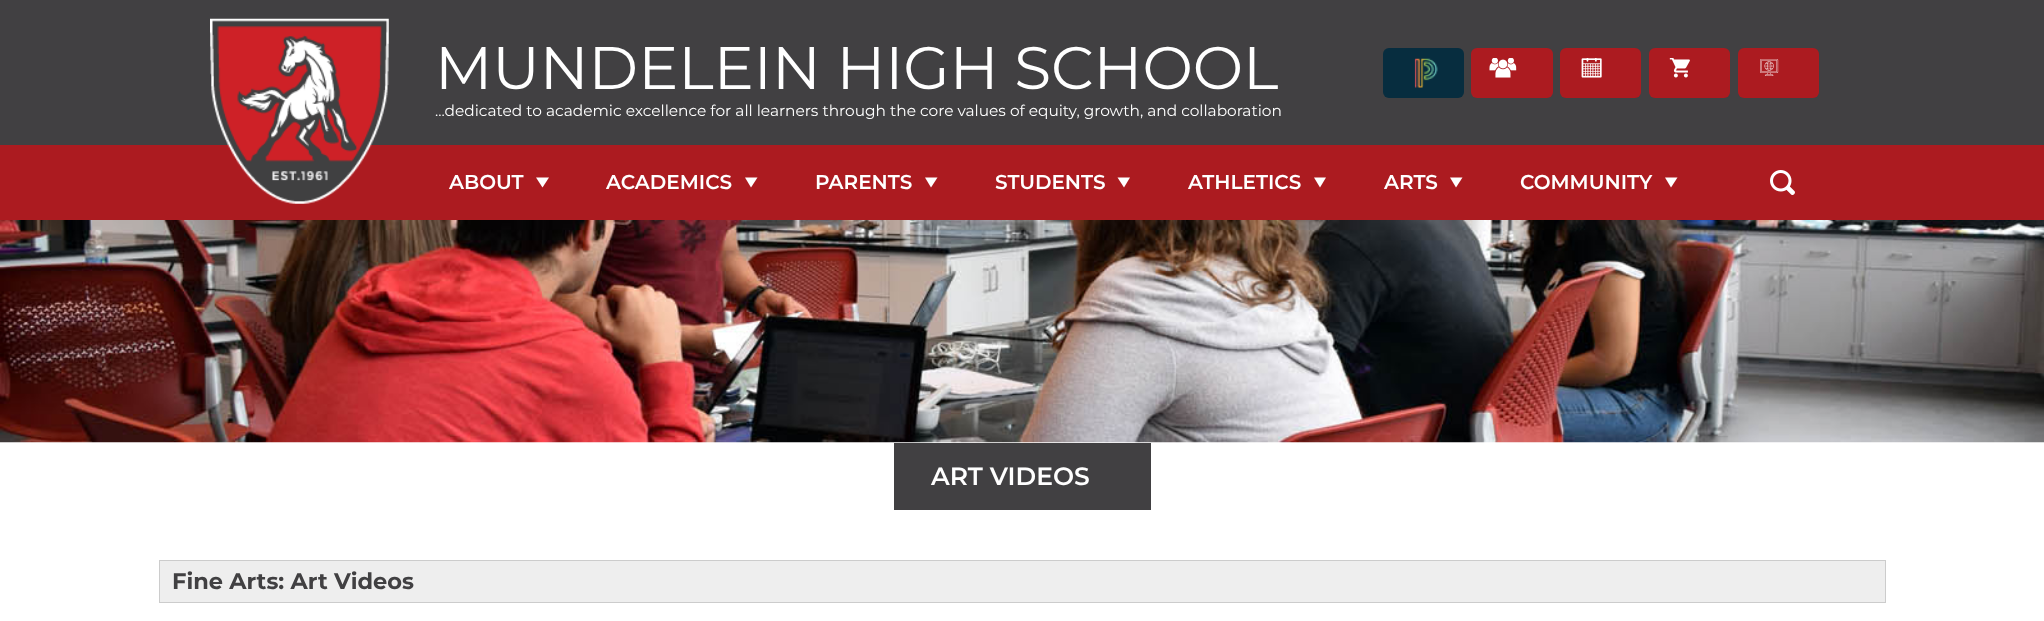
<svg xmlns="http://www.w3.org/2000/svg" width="2044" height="621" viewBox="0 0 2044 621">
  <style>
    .t1 { font: 60px Montserrat; fill: #fff; }
    .t2 { font: 15.4px Montserrat; fill: #fff; }
    .t3 { font: 600 20px Montserrat; fill: #fff; }
    .t4 { font: 600 25px Montserrat; fill: #fff; }
    .t5 { font: bold 22.5px Montserrat; fill: #414042; }
  </style>
  <rect width="100%" height="100%" fill="#fff"/>
  <rect x="0" y="0" width="2044" height="145" fill="#414042"/>
  <rect x="0" y="145" width="2044" height="75" fill="#ac1b20"/>
  <image x="210" y="18" width="179" height="186" href="images/1.png"/>
  <text x="435" y="89" class="t1">MUNDELEIN HIGH SCHOOL</text>
  <text x="435" y="116" class="t2">...dedicated to academic excellence for all learners through the core values of equity, growth, and collaboration</text>
  <rect x="1383" y="48" width="81" height="50" rx="6" fill="#072d3f"/>
  <image x="1414" y="58" width="24" height="30" href="images/2.png"/>
  <rect x="1471" y="48" width="82" height="50" rx="6" fill="#ac1b20"/>
  <image x="1489" y="58" width="28" height="20" href="images/3.png"/>
  <rect x="1560" y="48" width="81" height="50" rx="6" fill="#ac1b20"/>
  <image x="1581" y="58" width="21" height="20" href="images/4.png"/>
  <rect x="1649" y="48" width="81" height="50" rx="6" fill="#ac1b20"/>
  <image x="1669" y="58" width="21" height="20" href="images/5.png"/>
  <rect x="1738" y="48" width="81" height="50" rx="6" fill="#ac1b20"/>
  <image x="1760" y="59" width="19" height="17" href="images/6.png"/>
  <text x="449" y="189" class="t3">ABOUT</text>
  <path d="M536 177.5H549L542.5 187.5Z" fill="#fff"/>
  <text x="606" y="189" class="t3">ACADEMICS</text>
  <path d="M745 177.5H757.5L751 187.5Z" fill="#fff"/>
  <text x="815" y="189" class="t3">PARENTS</text>
  <path d="M925 177.5H937.5L931 187.5Z" fill="#fff"/>
  <text x="995" y="189" class="t3">STUDENTS</text>
  <path d="M1117.5 177.5H1130L1124 187.5Z" fill="#fff"/>
  <text x="1188" y="189" class="t3">ATHLETICS</text>
  <path d="M1314 177.5H1326L1320 187.5Z" fill="#fff"/>
  <text x="1384" y="189" class="t3">ARTS</text>
  <path d="M1450 177.5H1462.5L1456 187.5Z" fill="#fff"/>
  <text x="1520" y="189" class="t3">COMMUNITY</text>
  <path d="M1665 177.5H1677.5L1671 187.5Z" fill="#fff"/>
  <image x="1770" y="170" width="25" height="25" href="images/7.png"/>
  <image x="0" y="220" width="2044" height="223" href="images/8.png"/>
  <rect x="894" y="443" width="257" height="67" fill="#414042"/>
  <text x="931" y="485" class="t4">ART VIDEOS</text>
  <rect x="159.5" y="560.5" width="1726" height="42" fill="#eee" stroke="#ccc"/>
  <text x="172" y="589" class="t5">Fine Arts: Art Videos</text>
</svg>
